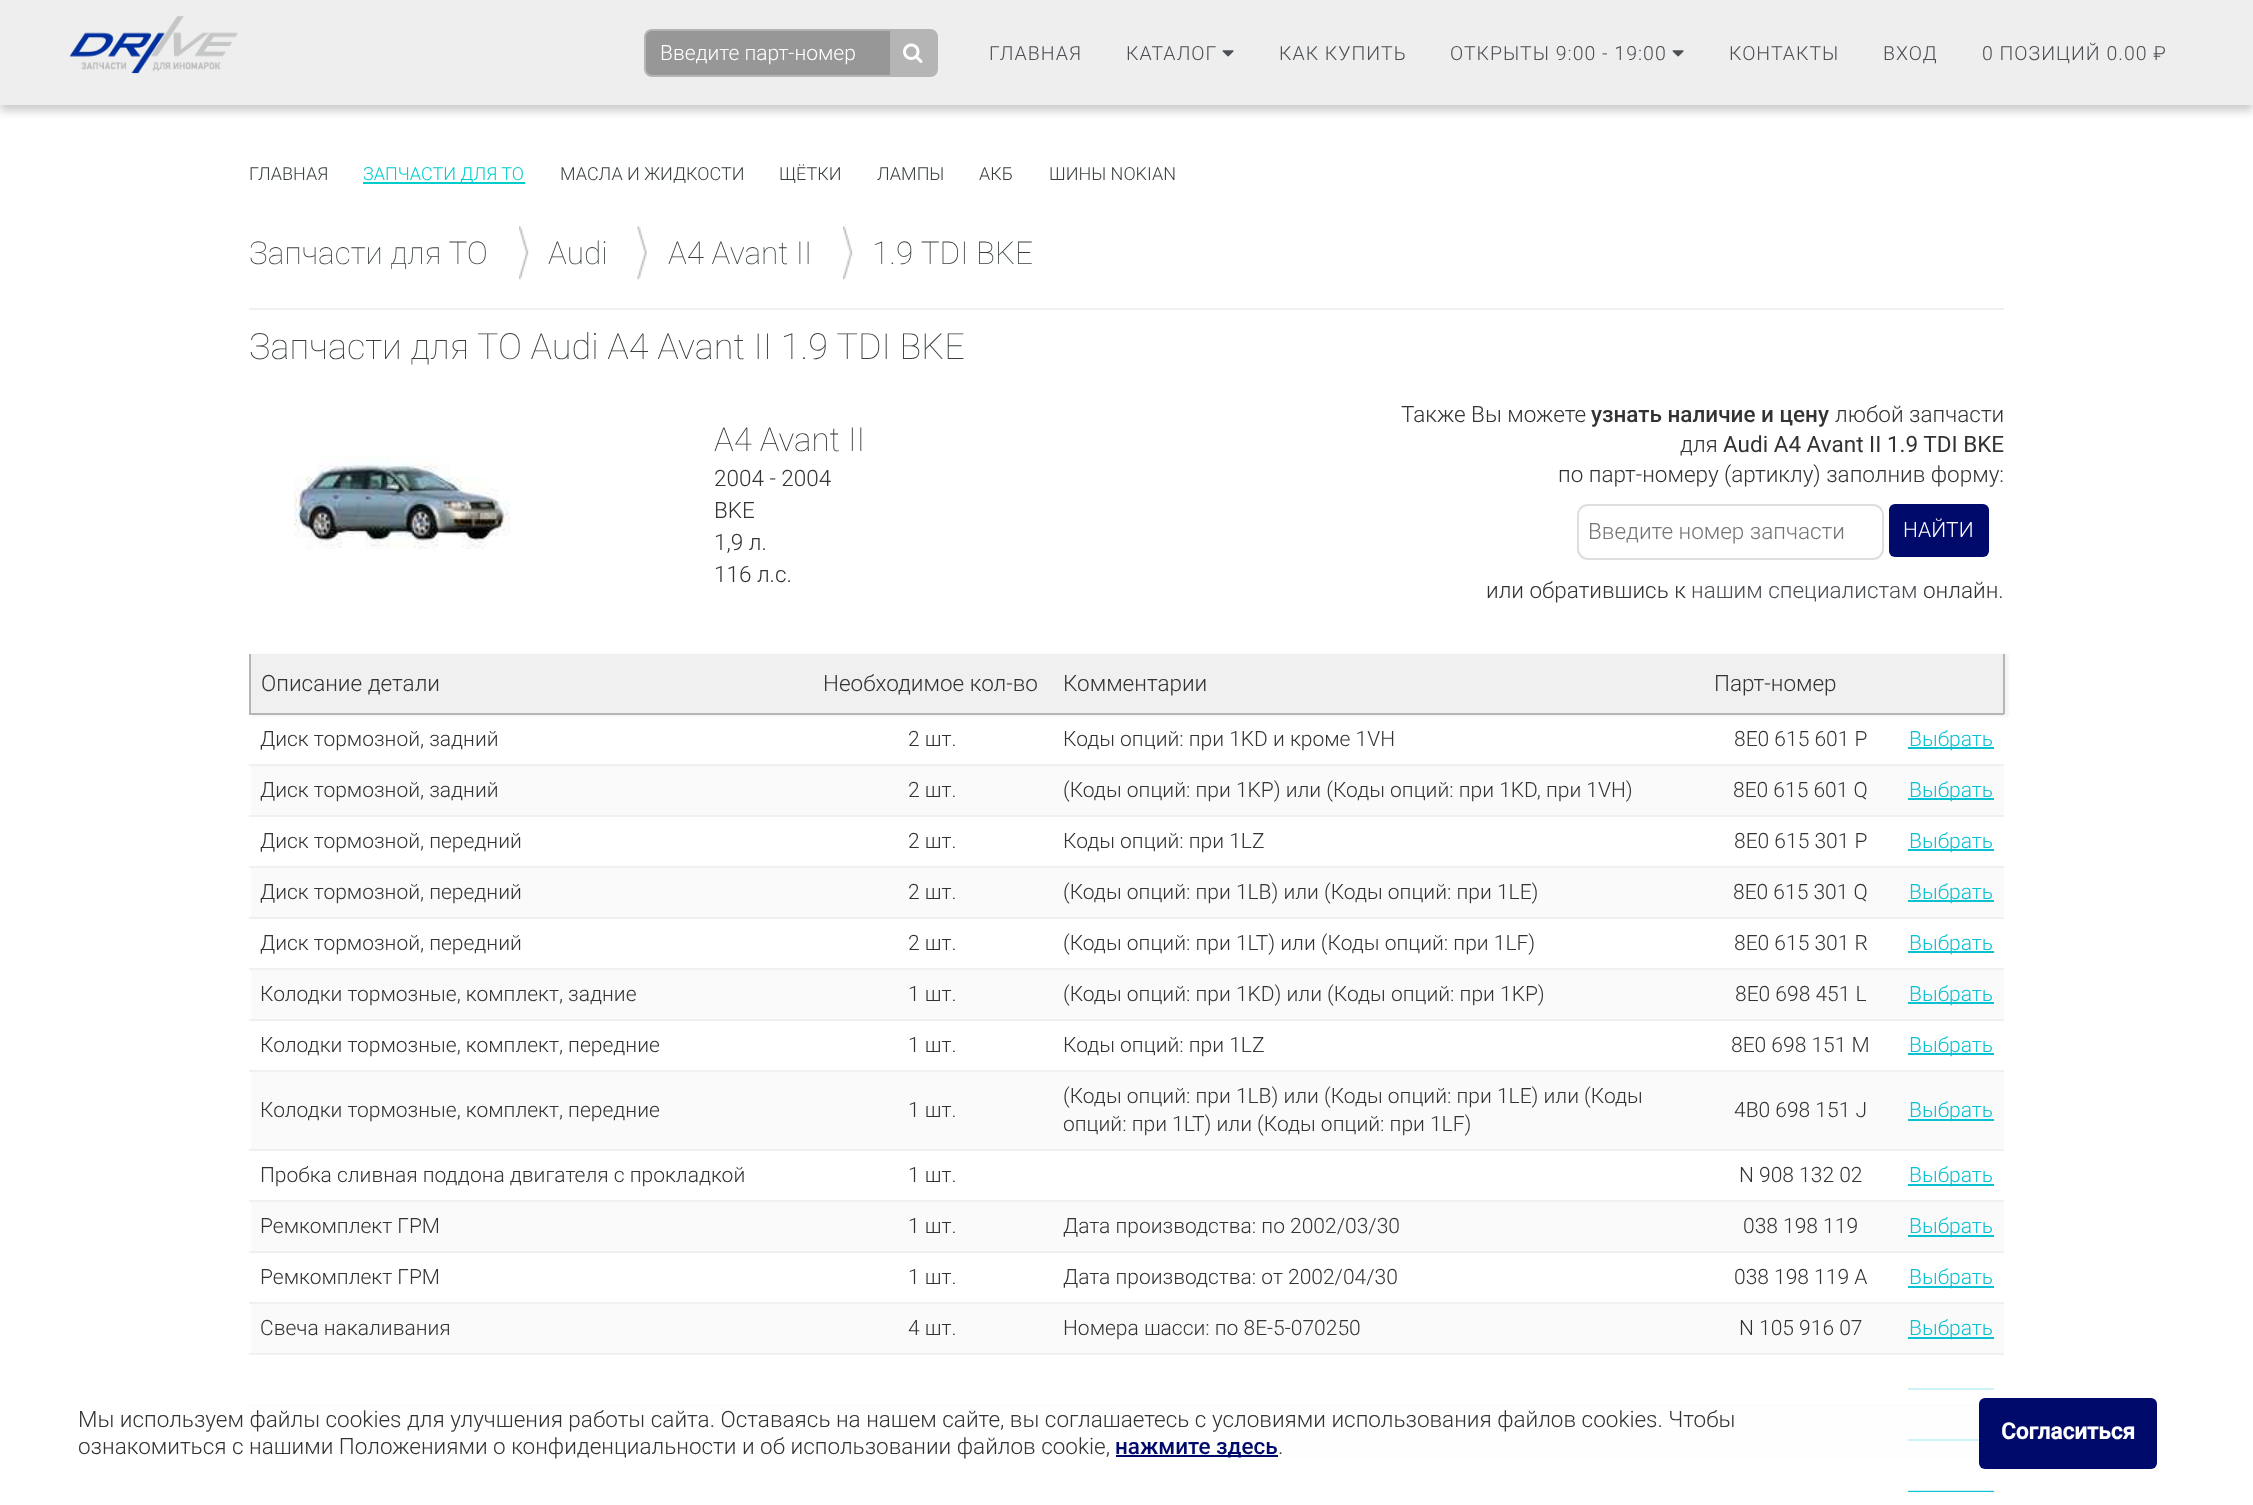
<svg xmlns="http://www.w3.org/2000/svg" width="2253" height="1505" viewBox="0 0 2253 1505">
  <style>
    .t1 { font: 300 21px Roboto; fill: #fff; }
    .t2 { font: 300 19.5px Roboto; letter-spacing: 1px; fill: #4b4e53; }
    .t3 { font: 300 18px Roboto; fill: #393f3f; }
    .t4 { font: 300 18px Roboto; fill: #0cc; }
    .t5 { font: 100 31.5px Roboto; fill: #393f3f; }
    .t6 { font: 100 36px Roboto; fill: #393f3f; }
    .t7 { font: 100 33px Roboto; fill: #333; }
    .t8 { font: 300 22.5px Roboto; fill: #333; }
    .t9 { font: 500 22.5px Roboto; fill: #333; }
    .t10 { font: 22.5px Roboto; fill: #333; }
    .t11 { font: 300 22.5px Roboto; fill: #757575; }
    .t12 { font: 300 22.5px Roboto; fill: #4b4e53; }
    .t13 { font: 300 21px Roboto; fill: #333; }
    .t14 { font: 300 21px Roboto; fill: #0ac1d1; }
    .t15 { font: 500 22.5px Roboto; fill: #000a6a; }
    .t16 { font: bold 22.5px Roboto; fill: #fff; }
  </style>
  <rect width="100%" height="100%" fill="#fff"/>
  <rect x="0" y="6" width="2253" height="105" fill="#00000033" filter="blur(4px)"/>
  <rect x="0" y="0" width="2253" height="105" fill="#eee"/>
  <image x="69" y="16" width="169" height="58" href="images/1.png"/>
  <rect x="645" y="30" width="256" height="46" rx="7" fill="#979797" stroke="#b5b5b5" stroke-width="2"/>
  <text x="660" y="60" class="t1">Введите парт-номер</text>
  <path d="M890 29H930C934.5 29 938 32.5 938 37V69C938 73.5 934.5 77 930 77H890Z" fill="#b5b5b5"/>
  <image x="903" y="43" width="20" height="20" href="images/2.png"/>
  <text x="989" y="60" class="t2">ГЛАВНАЯ</text>
  <text x="1126" y="60" class="t2">КАТАЛОГ</text>
  <image x="1222" y="50" width="12" height="7" href="images/3.png"/>
  <text x="1279" y="60" class="t2">КАК КУПИТЬ</text>
  <text x="1450" y="60" class="t2">ОТКРЫТЫ 9:00 - 19:00</text>
  <image x="1672" y="50" width="12" height="7" href="images/3.png"/>
  <text x="1729" y="60" class="t2">КОНТАКТЫ</text>
  <text x="1883" y="60" class="t2">ВХОД</text>
  <text x="1982" y="60" class="t2">0 ПОЗИЦИЙ 0.00 ₽</text>
  <text x="249" y="180" class="t3">ГЛАВНАЯ</text>
  <rect x="363" y="182" width="162" height="2" fill="#0cc"/>
  <text x="363" y="180" class="t4">ЗАПЧАСТИ ДЛЯ ТО</text>
  <text x="560" y="180" class="t3">МАСЛА И ЖИДКОСТИ</text>
  <text x="779" y="180" class="t3">ЩЁТКИ</text>
  <text x="877" y="180" class="t3">ЛАМПЫ</text>
  <text x="979" y="180" class="t3">АКБ</text>
  <text x="1049" y="180" class="t3">ШИНЫ NOKIAN</text>
  <rect x="249" y="308" width="1755" height="2" fill="#f0f0f0"/>
  <text x="249" y="264" class="t5">Запчасти для ТО</text>
  <image x="519" y="226" width="10" height="54" href="images/4.png"/>
  <text x="548" y="264" class="t5">Audi</text>
  <image x="637" y="226" width="10" height="54" href="images/5.png"/>
  <text x="668" y="264" class="t5">A4 Avant II</text>
  <image x="843" y="226" width="10" height="54" href="images/4.png"/>
  <text x="872" y="264" class="t5">1.9 TDI BKE</text>
  <text x="249" y="359" class="t6">Запчасти для ТО Audi A4 Avant II 1.9 TDI BKE</text>
  <image x="294" y="456" width="216" height="93" href="images/6.png"/>
  <text x="714" y="451" class="t7">A4 Avant II</text>
  <text x="714" y="486" class="t8">2004 - 2004</text>
  <text x="714" y="518" class="t8">BKE</text>
  <text x="714" y="550" class="t8">1,9 л.</text>
  <text x="714" y="582" class="t8">116 л.с.</text>
  <text x="1401" y="422" class="t8">Также Вы можете</text>
  <text x="1591" y="422" class="t9">узнать наличие и цену</text>
  <text x="1835" y="422" class="t8">любой запчасти</text>
  <text x="1680" y="452" class="t8">для</text>
  <text x="1723" y="452" class="t10">Audi A4 Avant II 1.9 TDI BKE</text>
  <text x="1558" y="482" class="t8">по парт-номеру (артиклу) заполнив форму:</text>
  <rect x="1578" y="505" width="305" height="54" rx="10" fill="none" stroke="#dedede" stroke-width="2"/>
  <text x="1588" y="539" class="t11">Введите номер запчасти</text>
  <rect x="1889" y="504" width="100" height="53" rx="6" fill="#000a6a"/>
  <text x="1903" y="537" class="t1">НАЙТИ</text>
  <text x="1486" y="598" class="t8">или обратившись к</text>
  <text x="1691" y="598" class="t12">нашим специалистам</text>
  <text x="1923" y="598" class="t8">онлайн.</text>
  <rect x="252" y="654" width="1757" height="63" fill="#f5f5f5" filter="blur(1px)"/>
  <rect x="251" y="654" width="1752" height="59" fill="#f0f0f0"/>
  <rect x="2003" y="654" width="2" height="60" fill="#b5b5b5"/>
  <rect x="249" y="713" width="1755" height="2" fill="#b5b5b5"/>
  <rect x="249" y="654" width="2" height="60" fill="#b5b5b5"/>
  <text x="261" y="691" class="t8">Описание детали</text>
  <text x="823" y="691" class="t8">Необходимое кол-во</text>
  <text x="1063" y="691" class="t8">Комментарии</text>
  <text x="1714" y="691" class="t8">Парт-номер</text>
  <text x="260" y="746" class="t13">Диск тормозной, задний</text>
  <text x="908" y="746" class="t13">2 шт.</text>
  <text x="1063" y="746" class="t13">Коды опций: при 1KD и кроме 1VH</text>
  <text x="1734" y="746" class="t13">8E0 615 601 P</text>
  <rect x="1908" y="747" width="86" height="2" fill="#0ac1d1"/>
  <text x="1909" y="746" class="t14">Выбрать</text>
  <rect x="251" y="766" width="1753" height="49" fill="#fafafa"/>
  <rect x="249" y="764" width="1755" height="2" fill="#f0f0f0"/>
  <text x="260" y="797" class="t13">Диск тормозной, задний</text>
  <text x="908" y="797" class="t13">2 шт.</text>
  <text x="1063" y="797" class="t13">(Коды опций: при 1KP) или (Коды опций: при 1KD, при 1VH)</text>
  <text x="1733" y="797" class="t13">8E0 615 601 Q</text>
  <rect x="1908" y="798" width="86" height="2" fill="#0ac1d1"/>
  <text x="1909" y="797" class="t14">Выбрать</text>
  <rect x="249" y="815" width="1755" height="2" fill="#f0f0f0"/>
  <text x="260" y="848" class="t13">Диск тормозной, передний</text>
  <text x="908" y="848" class="t13">2 шт.</text>
  <text x="1063" y="848" class="t13">Коды опций: при 1LZ</text>
  <text x="1734" y="848" class="t13">8E0 615 301 P</text>
  <rect x="1908" y="849" width="86" height="2" fill="#0ac1d1"/>
  <text x="1909" y="848" class="t14">Выбрать</text>
  <rect x="251" y="868" width="1753" height="49" fill="#fafafa"/>
  <rect x="249" y="866" width="1755" height="2" fill="#f0f0f0"/>
  <text x="260" y="899" class="t13">Диск тормозной, передний</text>
  <text x="908" y="899" class="t13">2 шт.</text>
  <text x="1063" y="899" class="t13">(Коды опций: при 1LB) или (Коды опций: при 1LE)</text>
  <text x="1733" y="899" class="t13">8E0 615 301 Q</text>
  <rect x="1908" y="900" width="86" height="2" fill="#0ac1d1"/>
  <text x="1909" y="899" class="t14">Выбрать</text>
  <rect x="249" y="917" width="1755" height="2" fill="#f0f0f0"/>
  <text x="260" y="950" class="t13">Диск тормозной, передний</text>
  <text x="908" y="950" class="t13">2 шт.</text>
  <text x="1063" y="950" class="t13">(Коды опций: при 1LT) или (Коды опций: при 1LF)</text>
  <text x="1734" y="950" class="t13">8E0 615 301 R</text>
  <rect x="1908" y="951" width="86" height="2" fill="#0ac1d1"/>
  <text x="1909" y="950" class="t14">Выбрать</text>
  <rect x="251" y="970" width="1753" height="49" fill="#fafafa"/>
  <rect x="249" y="968" width="1755" height="2" fill="#f0f0f0"/>
  <text x="260" y="1001" class="t13">Колодки тормозные, комплект, задние</text>
  <text x="908" y="1001" class="t13">1 шт.</text>
  <text x="1063" y="1001" class="t13">(Коды опций: при 1KD) или (Коды опций: при 1KP)</text>
  <text x="1735" y="1001" class="t13">8E0 698 451 L</text>
  <rect x="1908" y="1002" width="86" height="2" fill="#0ac1d1"/>
  <text x="1909" y="1001" class="t14">Выбрать</text>
  <rect x="249" y="1019" width="1755" height="2" fill="#f0f0f0"/>
  <text x="260" y="1052" class="t13">Колодки тормозные, комплект, передние</text>
  <text x="908" y="1052" class="t13">1 шт.</text>
  <text x="1063" y="1052" class="t13">Коды опций: при 1LZ</text>
  <text x="1731" y="1052" class="t13">8E0 698 151 M</text>
  <rect x="1908" y="1053" width="86" height="2" fill="#0ac1d1"/>
  <text x="1909" y="1052" class="t14">Выбрать</text>
  <rect x="251" y="1072" width="1753" height="77" fill="#fafafa"/>
  <rect x="249" y="1070" width="1755" height="2" fill="#f0f0f0"/>
  <text x="260" y="1117" class="t13">Колодки тормозные, комплект, передние</text>
  <text x="908" y="1117" class="t13">1 шт.</text>
  <text x="1063" y="1103" class="t13">(Коды опций: при 1LB) или (Коды опций: при 1LE) или (Коды</text>
  <text x="1063" y="1131" class="t13">опций: при 1LT) или (Коды опций: при 1LF)</text>
  <text x="1734" y="1117" class="t13">4B0 698 151 J</text>
  <rect x="1908" y="1119" width="86" height="2" fill="#0ac1d1"/>
  <text x="1909" y="1117" class="t14">Выбрать</text>
  <rect x="249" y="1149" width="1755" height="2" fill="#f0f0f0"/>
  <text x="260" y="1182" class="t13">Пробка сливная поддона двигателя с прокладкой</text>
  <text x="908" y="1182" class="t13">1 шт.</text>
  <text x="1739" y="1182" class="t13">N 908 132 02</text>
  <rect x="1908" y="1184" width="86" height="2" fill="#0ac1d1"/>
  <text x="1909" y="1182" class="t14">Выбрать</text>
  <rect x="251" y="1202" width="1753" height="49" fill="#fafafa"/>
  <rect x="249" y="1200" width="1755" height="2" fill="#f0f0f0"/>
  <text x="260" y="1233" class="t13">Ремкомплект ГРМ</text>
  <text x="908" y="1233" class="t13">1 шт.</text>
  <text x="1063" y="1233" class="t13">Дата производства: по 2002/03/30</text>
  <text x="1743" y="1233" class="t13">038 198 119</text>
  <rect x="1908" y="1235" width="86" height="2" fill="#0ac1d1"/>
  <text x="1909" y="1233" class="t14">Выбрать</text>
  <rect x="249" y="1251" width="1755" height="2" fill="#f0f0f0"/>
  <text x="260" y="1284" class="t13">Ремкомплект ГРМ</text>
  <text x="908" y="1284" class="t13">1 шт.</text>
  <text x="1063" y="1284" class="t13">Дата производства: от 2002/04/30</text>
  <text x="1734" y="1284" class="t13">038 198 119 A</text>
  <rect x="1908" y="1286" width="86" height="2" fill="#0ac1d1"/>
  <text x="1909" y="1284" class="t14">Выбрать</text>
  <rect x="251" y="1304" width="1753" height="49" fill="#fafafa"/>
  <rect x="249" y="1302" width="1755" height="2" fill="#f0f0f0"/>
  <text x="260" y="1335" class="t13">Свеча накаливания</text>
  <text x="908" y="1335" class="t13">4 шт.</text>
  <text x="1063" y="1335" class="t13">Номера шасси: по 8E-5-070250</text>
  <text x="1739" y="1335" class="t13">N 105 916 07</text>
  <rect x="1908" y="1337" width="86" height="2" fill="#0ac1d1"/>
  <text x="1909" y="1335" class="t14">Выбрать</text>
  <rect x="249" y="1353" width="1755" height="2" fill="#f0f0f0"/>
  <rect x="1908" y="1388" width="86" height="2" fill="#0ac1d1"/>
  <rect x="251" y="1406" width="1728" height="49" fill="#fafafa"/>
  <rect x="249" y="1404" width="1730" height="2" fill="#f0f0f0"/>
  <rect x="1908" y="1439" width="71" height="2" fill="#0ac1d1"/>
  <rect x="249" y="1455" width="1730" height="2" fill="#f0f0f0"/>
  <rect x="1908" y="1490" width="86" height="2" fill="#0ac1d1"/>
  <rect x="48" y="1376" width="2157" height="115" rx="6" fill="#ffffffcc"/>
  <text x="78" y="1427" class="t8">Мы используем файлы cookies для улучшения работы сайта. Оставаясь на нашем сайте, вы соглашаетесь с условиями использования файлов cookies. Чтобы</text>
  <text x="78" y="1454" class="t8">ознакомиться с нашими Положениями о конфиденциальности и об использовании файлов cookie,</text>
  <rect x="1116" y="1455" width="162" height="2" fill="#000a6a"/>
  <text x="1115" y="1454" class="t15">нажмите здесь</text>
  <text x="1278" y="1454" class="t8">.</text>
  <rect x="1979" y="1398" width="178" height="71" rx="6" fill="#000a6a"/>
  <text x="2001" y="1439" class="t16">Согласиться</text>
</svg>
